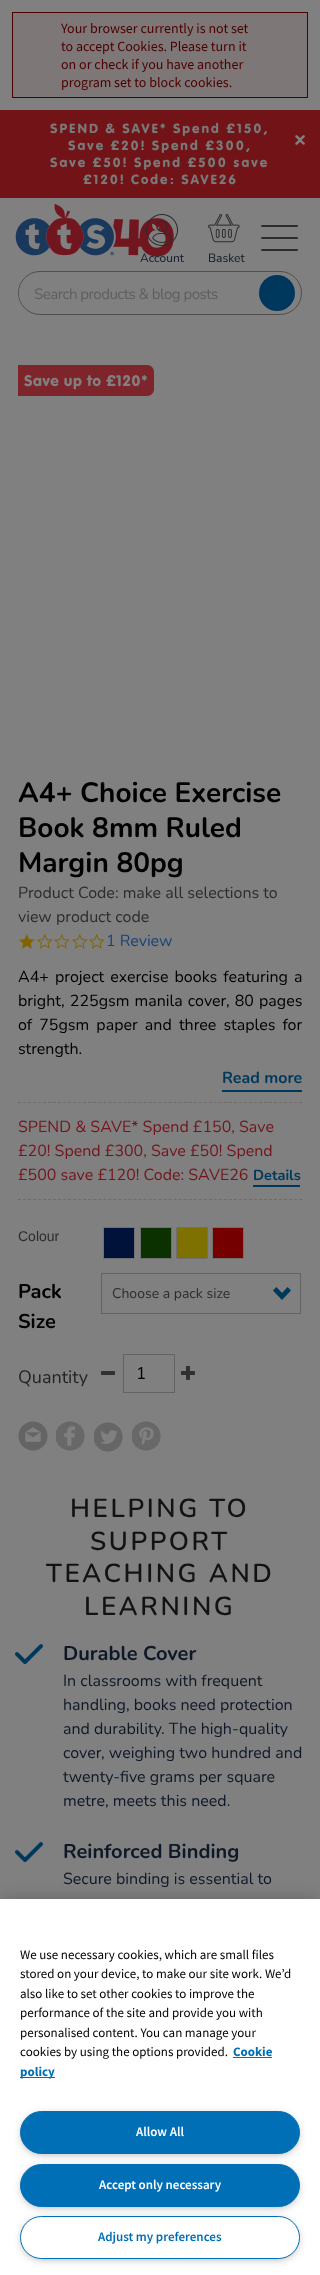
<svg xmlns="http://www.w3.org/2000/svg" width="320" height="2275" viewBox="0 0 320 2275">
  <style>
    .t1 { font: 14px Source Sans Pro; fill: #4d0000; }
    .t2 { font: 14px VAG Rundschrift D; letter-spacing: 2px; fill: #797978; }
    .t3 { font: 12px Nunito; fill: #0e1826; }
    .t4 { font: 15px Nunito; letter-spacing: -0.5px; fill: #5e5e5e; }
    .t5 { font: 16px VAG Rundschrift D; letter-spacing: 0.5px; fill: #808080; }
    .t6 { font: bold 28px Nunito; fill: #000; }
    .t7 { font: 16px Nunito; fill: #2c2c2b; }
    .t8 { font: 16px Nunito; fill: #184277; }
    .t9 { font: 16px Nunito; fill: #000; }
    .t10 { font: bold 16px Nunito; fill: #00385b; }
    .t11 { font: 16px Nunito; fill: #72151c; }
    .t12 { font: bold 14.5px Nunito; fill: #00385b; }
    .t13 { font: 14px Liberation Sans; fill: #2c2c2b; }
    .t14 { font: bold 20px Nunito; fill: #000; }
    .t15 { font: 14px Nunito; fill: #2c2c2b; }
    .t16 { font: 18px Nunito; fill: #232323; }
    .t17 { font: 17px Nunito; fill: #000; }
    .t18 { font: 600 26px Nunito; letter-spacing: 2.6px; fill: #131313; }
    .t19 { font: bold 20px Nunito; fill: #0e1826; }
    .t20 { font: 16px Nunito; fill: #0e1826; }
    .t21 { font: 13px Source Sans Pro; fill: #000; }
    .t22 { font: bold 13px Source Sans Pro; fill: #006fb6; }
    .t23 { font: 600 13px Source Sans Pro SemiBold; fill: #fff; }
    .t24 { font: 600 13px Source Sans Pro SemiBold; fill: #006fb6; }
  </style>
  <rect width="100%" height="100%" fill="#808080"/>
  <rect x="12.5" y="12.5" width="295" height="85" fill="#7d7777" stroke="#4d0000"/>
  <text x="61" y="33" class="t1">Your browser currently is not set</text>
  <text x="61" y="51" class="t1">to accept Cookies. Please turn it</text>
  <text x="61" y="69" class="t1">on or check if you have another</text>
  <text x="61" y="87" class="t1">program set to block cookies.</text>
  <rect x="0" y="110" width="320" height="88" fill="#721318"/>
  <text x="50" y="133" class="t2">SPEND &amp; SAVE* Spend £150,</text>
  <text x="68" y="150" class="t2">Save £20! Spend £300,</text>
  <text x="50" y="167" class="t2">Save £50! Spend £500 save</text>
  <text x="83" y="184" class="t2">£120! Code: SAVE26</text>
  <image x="295" y="135" width="10" height="10" href="images/1.png"/>
  <image x="15" y="204" width="159" height="53" href="images/2.png"/>
  <rect x="261" y="225" width="37" height="2" rx="1" fill="#2c2c2b"/>
  <rect x="261" y="237" width="37" height="2" rx="1" fill="#2c2c2b"/>
  <rect x="261" y="249" width="37" height="2" rx="1" fill="#2c2c2b"/>
  <image x="146" y="214" width="32" height="32" href="images/3.png"/>
  <text x="140" y="262" class="t3">Account</text>
  <image x="208" y="214" width="32" height="29" href="images/4.png"/>
  <text x="208" y="262" class="t3">Basket</text>
  <rect x="18.5" y="271.5" width="283" height="43" rx="21.5" fill="none" stroke="#4f4f4f"/>
  <rect x="19" y="274" width="237" height="38" rx="19" fill="#808080"/>
  <text x="34" y="299" class="t4">Search products &amp; blog posts</text>
  <circle cx="277" cy="293" r="18" fill="#00375c"/>
  <path d="M18 365H147C151 365 154 368 154 372V389C154 393 151 396 147 396H18Z" fill="#7d252b"/>
  <text x="24" y="386" class="t5">Save up to £120*</text>
  <text x="18" y="802" class="t6">A4+ Choice Exercise</text>
  <text x="18" y="837" class="t6">Book 8mm Ruled</text>
  <text x="18" y="872" class="t6">Margin 80pg</text>
  <text x="18" y="898" class="t7">Product Code: make all selections to</text>
  <text x="18" y="922" class="t7">view product code</text>
  <image x="19" y="934" width="16" height="15" href="images/5.png"/>
  <image x="37" y="934" width="16" height="15" href="images/6.png"/>
  <image x="54" y="934" width="16" height="15" href="images/6.png"/>
  <image x="72" y="934" width="16" height="15" href="images/6.png"/>
  <image x="89" y="934" width="16" height="15" href="images/6.png"/>
  <text x="106" y="946" class="t8">1 Review</text>
  <path d="M18 1102.5H302" fill="none" stroke="#6d6d6d" stroke-dasharray="3 2.02"/>
  <text x="18" y="982" word-spacing="2" class="t9">A4+ project exercise books featuring a</text>
  <text x="18" y="1006" word-spacing="1" class="t9">bright, 225gsm manila cover, 80 pages</text>
  <text x="18" y="1030" word-spacing="3" class="t9">of 75gsm paper and three staples for</text>
  <text x="18" y="1054" class="t9">strength.</text>
  <rect x="222" y="1090" width="80" height="2" fill="#00385b"/>
  <text x="222" y="1083" class="t10">Read more</text>
  <path d="M18 1199.5H302" fill="none" stroke="#6d6d6d" stroke-dasharray="3 2.02"/>
  <text x="18" y="1132" class="t11">SPEND &amp; SAVE* Spend £150, Save</text>
  <text x="18" y="1156" class="t11">£20! Spend £300, Save £50! Spend</text>
  <text x="18" y="1180" class="t11">£500 save £120! Code: SAVE26</text>
  <text x="253" y="1180" class="t12">Details</text>
  <rect x="253" y="1185" width="47" height="2" fill="#00385b"/>
  <text x="18" y="1241" class="t13">Colour</text>
  <rect x="103.5" y="1227.5" width="31" height="31" fill="none" stroke="#707070"/>
  <rect x="104" y="1228" width="30" height="30" fill="#01123a"/>
  <rect x="140.5" y="1227.5" width="31" height="31" fill="none" stroke="#707070"/>
  <rect x="141" y="1228" width="30" height="30" fill="#0b3101"/>
  <rect x="176.5" y="1227.5" width="31" height="31" fill="none" stroke="#707070"/>
  <image x="177" y="1228" width="30" height="30" href="images/7.png"/>
  <rect x="212.5" y="1227.5" width="31" height="31" fill="none" stroke="#707070"/>
  <image x="213" y="1228" width="30" height="30" href="images/8.png"/>
  <text x="18" y="1298" class="t14">Pack</text>
  <text x="18" y="1328" class="t14">Size</text>
  <image x="273" y="1287" width="18" height="13" href="images/9.png"/>
  <rect x="101.5" y="1273.5" width="199" height="40" fill="none" stroke="#616365"/>
  <text x="112" y="1298" class="t15">Choose a pack size</text>
  <text x="18" y="1383" class="t16">Quantity</text>
  <rect x="101" y="1371" width="14" height="4" fill="#303132"/>
  <rect x="123.5" y="1354.5" width="51" height="38" fill="none" stroke="#616365"/>
  <text x="136" y="1379" class="t17">1</text>
  <image x="181" y="1366" width="14" height="14" href="images/10.png"/>
  <image x="18" y="1421" width="30" height="30" href="images/11.png"/>
  <image x="56" y="1421" width="29" height="30" href="images/12.png"/>
  <image x="94" y="1422" width="29" height="30" href="images/13.png"/>
  <image x="132" y="1421" width="29" height="30" href="images/14.png"/>
  <text x="70" y="1517" class="t18">HELPING TO</text>
  <text x="90" y="1550" class="t18">SUPPORT</text>
  <text x="46" y="1582" class="t18">TEACHING AND</text>
  <text x="84" y="1615" class="t18">LEARNING</text>
  <image x="15" y="1644" width="28" height="20" href="images/15.png"/>
  <text x="63" y="1660" class="t19">Durable Cover</text>
  <text x="63" y="1686" class="t20">In classrooms with frequent</text>
  <text x="63" y="1710" class="t20">handling, books need protection</text>
  <text x="63" y="1734" class="t20">and durability. The high-quality</text>
  <text x="63" y="1758" class="t20">cover, weighing two hundred and</text>
  <text x="63" y="1782" class="t20">twenty-five grams per square</text>
  <text x="63" y="1806" class="t20">metre, meets this need.</text>
  <image x="15" y="1842" width="28" height="20" href="images/15.png"/>
  <text x="63" y="1858" class="t19">Reinforced Binding</text>
  <text x="63" y="1884" class="t20">Secure binding is essential to</text>
  <rect x="0" y="1899" width="320" height="376" fill="#00000033" filter="blur(9px)"/>
  <rect x="0" y="1899" width="320" height="376" fill="#fff"/>
  <text x="20" y="1959" class="t21">We use necessary cookies, which are small files</text>
  <text x="20" y="1978" class="t21">stored on your device, to make our site work. We’d</text>
  <text x="20" y="1998" class="t21">also like to set other cookies to improve the</text>
  <text x="20" y="2017" class="t21">performance of the site and provide you with</text>
  <text x="20" y="2037" class="t21">personalised content. You can manage your</text>
  <text x="20" y="2056" class="t21">cookies by using the options provided.</text>
  <text x="233" y="2056" class="t22">Cookie</text>
  <rect x="233" y="2057" width="39" height="1" fill="#006fb6"/>
  <rect x="20" y="2077" width="35" height="1" fill="#006fb6"/>
  <text x="20" y="2076" class="t22">policy</text>
  <rect x="23" y="2116" width="274" height="37" rx="18.5" fill="#999" filter="blur(5px)"/>
  <rect x="20.5" y="2111.5" width="279" height="42" rx="21" fill="#006fb6" stroke="#006fb6"/>
  <text x="136" y="2136" class="t23">Allow All</text>
  <rect x="23" y="2169" width="274" height="37" rx="18.5" fill="#999" filter="blur(5px)"/>
  <rect x="20.5" y="2164.5" width="279" height="42" rx="21" fill="#006fb6" stroke="#006fb6"/>
  <text x="99" y="2189" class="t23">Accept only necessary</text>
  <rect x="23" y="2221" width="274" height="37" rx="18.5" fill="#999" filter="blur(5px)"/>
  <rect x="20.5" y="2216.5" width="279" height="42" rx="21" fill="#fff" stroke="#006fb6"/>
  <text x="98" y="2241" class="t24">Adjust my preferences</text>
</svg>
